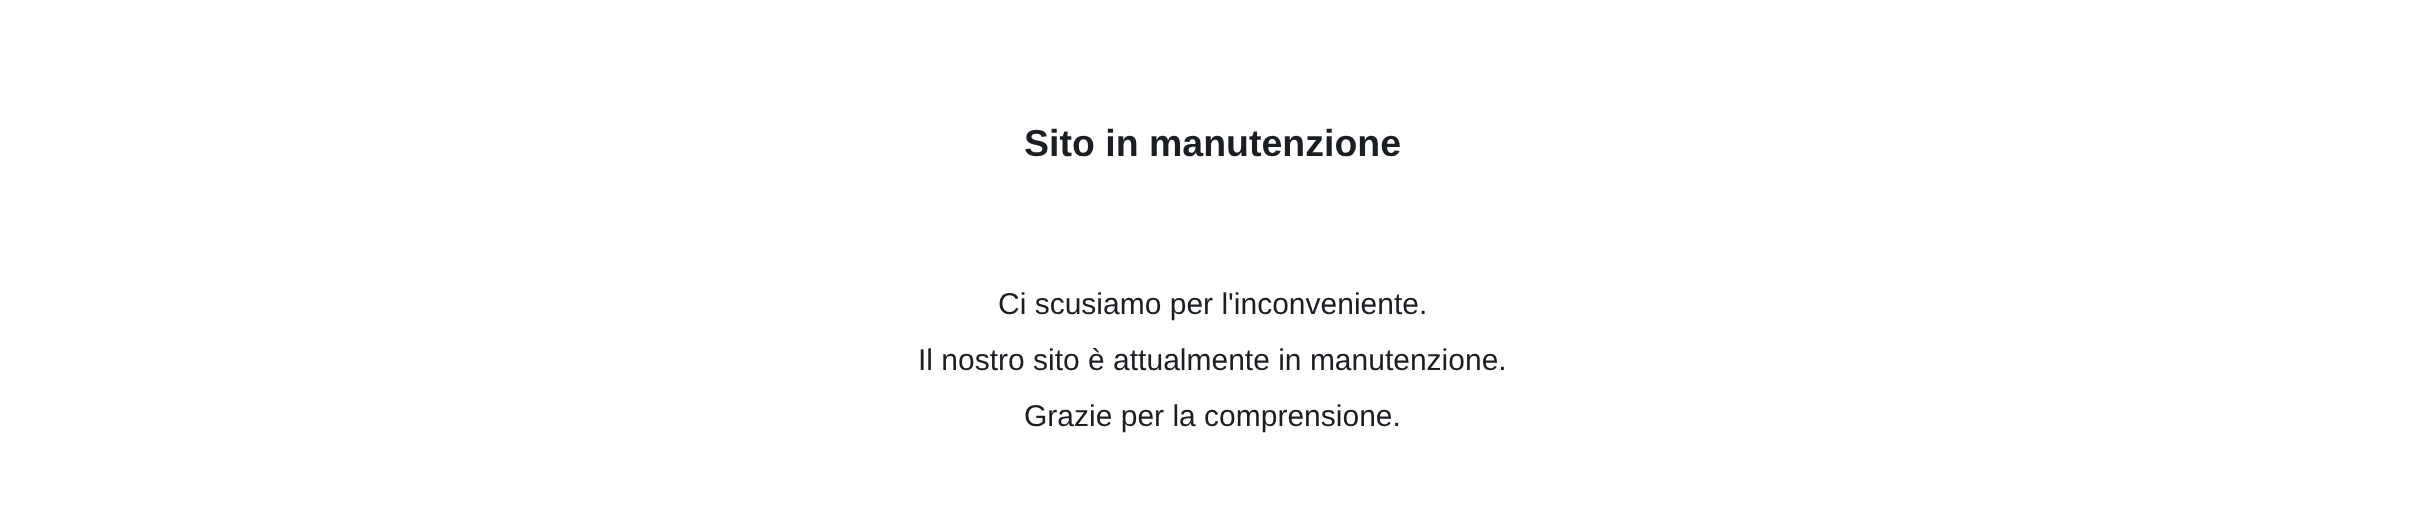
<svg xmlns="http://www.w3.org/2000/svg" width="2424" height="516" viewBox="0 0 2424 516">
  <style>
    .t1 { font: bold 37.5px Liberation Sans; fill: #1b1f23; }
    .t2 { font: 30px Liberation Sans; fill: #1b1f23; }
  </style>
  <rect width="100%" height="100%" fill="#fff"/>
  <text x="1024" y="156" class="t1">Sito in manutenzione</text>
  <text x="998" y="314" class="t2">Ci scusiamo per l'inconveniente.</text>
  <text x="918" y="370" class="t2">Il nostro sito è attualmente in manutenzione.</text>
  <text x="1024" y="426" class="t2">Grazie per la comprensione.</text>
</svg>
